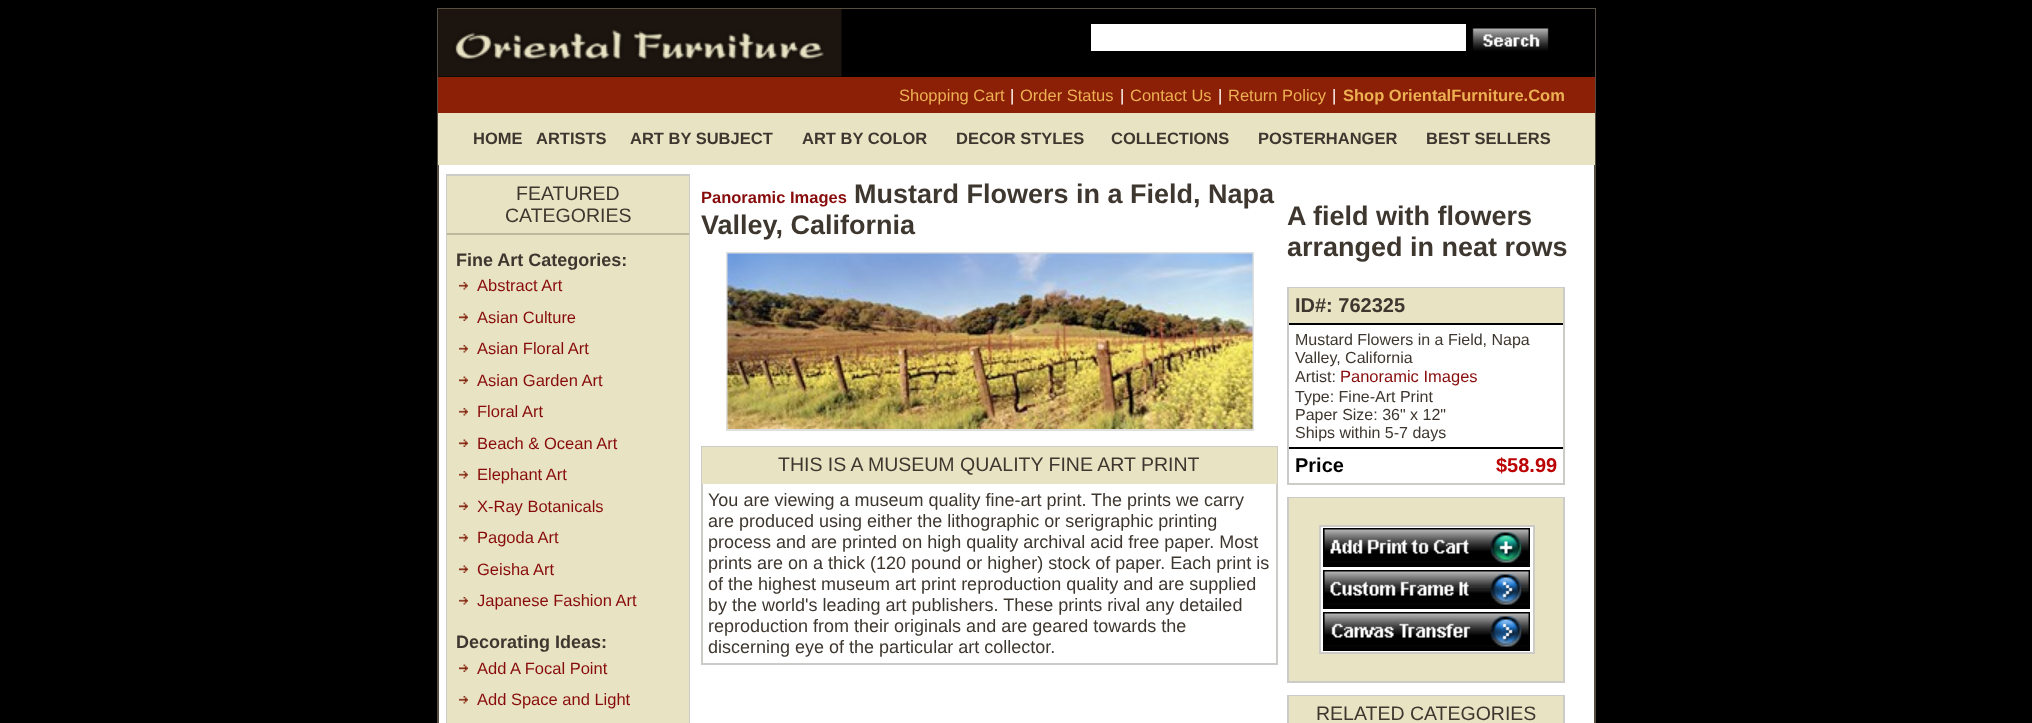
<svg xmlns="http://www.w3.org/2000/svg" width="2032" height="723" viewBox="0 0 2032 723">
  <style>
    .t1 { font: 16.5px Liberation Sans; fill: #edb053; }
    .t2 { font: 16.5px Liberation Sans; fill: #fff; }
    .t3 { font: bold 16.5px Liberation Sans; fill: #edb053; }
    .t4 { font: bold 16.5px Liberation Sans; fill: #3e372f; }
    .t5 { font: 19.5px Liberation Sans; fill: #3e372f; }
    .t6 { font: bold 18px Liberation Sans; fill: #3e372f; }
    .t7 { font: 16.5px Liberation Sans; fill: #880b0b; }
    .t8 { font: bold 16.5px Liberation Sans; fill: #880b0b; }
    .t9 { font: bold 27px Liberation Sans; fill: #3e372f; }
    .t10 { font: 18px Liberation Sans; fill: #3e372f; }
    .t11 { font: bold 20px Liberation Sans; fill: #3e372f; }
    .t12 { font: 16px Liberation Sans; fill: #3e372f; }
    .t13 { font: bold 20px Liberation Sans; fill: #000; }
    .t14 { font: bold 20px Liberation Sans; fill: #bc0404; }
  </style>
  <rect width="100%" height="100%" fill="#000"/>
  <rect x="439" y="165" width="1155" height="558" fill="#fff"/>
  <rect x="438" y="9" width="1157" height="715" fill="none" stroke="#564e41" stroke-width="2"/>
  <rect x="438" y="9" width="1157" height="68" fill="#000"/>
  <image x="438" y="9" width="404" height="68" href="images/1.png"/>
  <rect x="1091" y="24" width="375" height="27" fill="#fff"/>
  <image x="1472" y="28" width="77" height="23" href="images/2.png"/>
  <rect x="438" y="77" width="1157" height="36" fill="#8b2006"/>
  <text x="899" y="101" class="t1">Shopping Cart</text>
  <text x="1010" y="101" class="t2">|</text>
  <text x="1020" y="101" class="t1">Order Status</text>
  <text x="1120" y="101" class="t2">|</text>
  <text x="1130" y="101" class="t1">Contact Us</text>
  <text x="1218" y="101" class="t2">|</text>
  <text x="1228" y="101" class="t1">Return Policy</text>
  <text x="1332" y="101" class="t2">|</text>
  <text x="1343" y="101" class="t3">Shop OrientalFurniture.Com</text>
  <rect x="438" y="113" width="1157" height="52" fill="#e8e3c3"/>
  <text x="473" y="144" class="t4">HOME</text>
  <text x="536" y="144" class="t4">ARTISTS</text>
  <text x="630" y="144" class="t4">ART BY SUBJECT</text>
  <text x="802" y="144" class="t4">ART BY COLOR</text>
  <text x="956" y="144" class="t4">DECOR STYLES</text>
  <text x="1111" y="144" class="t4">COLLECTIONS</text>
  <text x="1258" y="144" class="t4">POSTERHANGER</text>
  <text x="1426" y="144" class="t4">BEST SELLERS</text>
  <rect x="447" y="175" width="242" height="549" fill="none" stroke="#cdcbc7" stroke-width="2"/>
  <rect x="447" y="176" width="242" height="57" fill="#e8e3c3"/>
  <text x="516" y="200" class="t5">FEATURED</text>
  <text x="505" y="222" class="t5">CATEGORIES</text>
  <rect x="447" y="235" width="242" height="488" fill="#e8e3c3"/>
  <rect x="447" y="233" width="242" height="2" fill="#bcb89e"/>
  <text x="456" y="266" class="t6">Fine Art Categories:</text>
  <image x="459" y="282" width="9" height="8" href="images/3.png"/>
  <text x="477" y="291" class="t7">Abstract Art</text>
  <image x="459" y="313" width="9" height="8" href="images/4.png"/>
  <text x="477" y="323" class="t7">Asian Culture</text>
  <image x="459" y="345" width="9" height="8" href="images/3.png"/>
  <text x="477" y="354" class="t7">Asian Floral Art</text>
  <image x="459" y="376" width="9" height="8" href="images/4.png"/>
  <text x="477" y="386" class="t7">Asian Garden Art</text>
  <image x="459" y="408" width="9" height="8" href="images/3.png"/>
  <text x="477" y="417" class="t7">Floral Art</text>
  <image x="459" y="439" width="9" height="8" href="images/4.png"/>
  <text x="477" y="449" class="t7">Beach &amp; Ocean Art</text>
  <image x="459" y="471" width="9" height="8" href="images/3.png"/>
  <text x="477" y="480" class="t7">Elephant Art</text>
  <image x="459" y="502" width="9" height="8" href="images/4.png"/>
  <text x="477" y="512" class="t7">X-Ray Botanicals</text>
  <image x="459" y="534" width="9" height="8" href="images/3.png"/>
  <text x="477" y="543" class="t7">Pagoda Art</text>
  <image x="459" y="565" width="9" height="8" href="images/4.png"/>
  <text x="477" y="575" class="t7">Geisha Art</text>
  <image x="459" y="597" width="9" height="8" href="images/3.png"/>
  <text x="477" y="606" class="t7">Japanese Fashion Art</text>
  <text x="456" y="648" class="t6">Decorating Ideas:</text>
  <image x="459" y="664" width="9" height="8" href="images/4.png"/>
  <text x="477" y="674" class="t7">Add A Focal Point</text>
  <image x="459" y="696" width="9" height="8" href="images/3.png"/>
  <text x="477" y="705" class="t7">Add Space and Light</text>
  <text x="701" y="203" class="t8">Panoramic Images</text>
  <text x="854" y="203" class="t9">Mustard Flowers in a Field, Napa</text>
  <text x="701" y="234" class="t9">Valley, California</text>
  <rect x="727" y="253" width="526" height="177" fill="none" stroke="#dfdfdf" stroke-width="2"/>
  <image x="727" y="253" width="526" height="176" href="images/5.png"/>
  <rect x="702" y="447" width="575" height="217" fill="none" stroke="#cdcbc7" stroke-width="2"/>
  <rect x="702" y="447" width="575" height="37" fill="#e8e3c3"/>
  <text x="778" y="471" class="t5">THIS IS A MUSEUM QUALITY FINE ART PRINT</text>
  <text x="708" y="506" class="t10">You are viewing a museum quality fine-art print.</text>
  <text x="1091" y="506" class="t10">The prints we carry</text>
  <text x="708" y="527" class="t10">are produced using either the lithographic or serigraphic printing</text>
  <text x="708" y="548" class="t10">process and are printed on high quality archival acid free paper. Most</text>
  <text x="708" y="569" class="t10">prints are on a thick (120 pound or higher) stock of paper. Each print is</text>
  <text x="708" y="590" class="t10">of the highest museum art print reproduction quality and are supplied</text>
  <text x="708" y="611" class="t10">by the world's leading art publishers. These prints rival any detailed</text>
  <text x="708" y="632" class="t10">reproduction from their originals and are geared towards the</text>
  <text x="708" y="653" class="t10">discerning eye of the particular art collector.</text>
  <text x="1287" y="225" class="t9">A field with flowers</text>
  <text x="1287" y="256" class="t9">arranged in neat rows</text>
  <rect x="1288" y="288" width="276" height="196" fill="none" stroke="#cdcbc7" stroke-width="2"/>
  <rect x="1289" y="288" width="274" height="35" fill="#e8e3c3"/>
  <text x="1295" y="312" class="t11">ID#: 762325</text>
  <rect x="1289" y="323" width="274" height="2" fill="#000"/>
  <text x="1295" y="345" class="t12">Mustard Flowers in a Field, Napa</text>
  <text x="1295" y="363" class="t12">Valley, California</text>
  <text x="1295" y="382" class="t12">Artist:</text>
  <text x="1340" y="382" class="t7">Panoramic Images</text>
  <text x="1295" y="402" class="t12">Type: Fine-Art Print</text>
  <text x="1295" y="420" class="t12">Paper Size: 36" x 12"</text>
  <text x="1295" y="438" class="t12">Ships within 5-7 days</text>
  <rect x="1289" y="447" width="274" height="2" fill="#000"/>
  <text x="1295" y="472" class="t13">Price</text>
  <text x="1496" y="472" class="t14">$58.99</text>
  <rect x="1288" y="498" width="276" height="184" fill="none" stroke="#cdcbc7" stroke-width="2"/>
  <rect x="1289" y="498" width="274" height="183" fill="#e8e3c3"/>
  <rect x="1320" y="526" width="214" height="127" fill="#fff" stroke="#cdcbc7" stroke-width="2"/>
  <image x="1323" y="528" width="207" height="39" href="images/6.png"/>
  <image x="1323" y="570" width="207" height="39" href="images/7.png"/>
  <image x="1323" y="612" width="207" height="39" href="images/8.png"/>
  <rect x="1288" y="696" width="276" height="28" fill="none" stroke="#cdcbc7" stroke-width="2"/>
  <rect x="1289" y="696" width="274" height="27" fill="#e8e3c3"/>
  <text x="1316" y="720" class="t5">RELATED CATEGORIES</text>
</svg>
